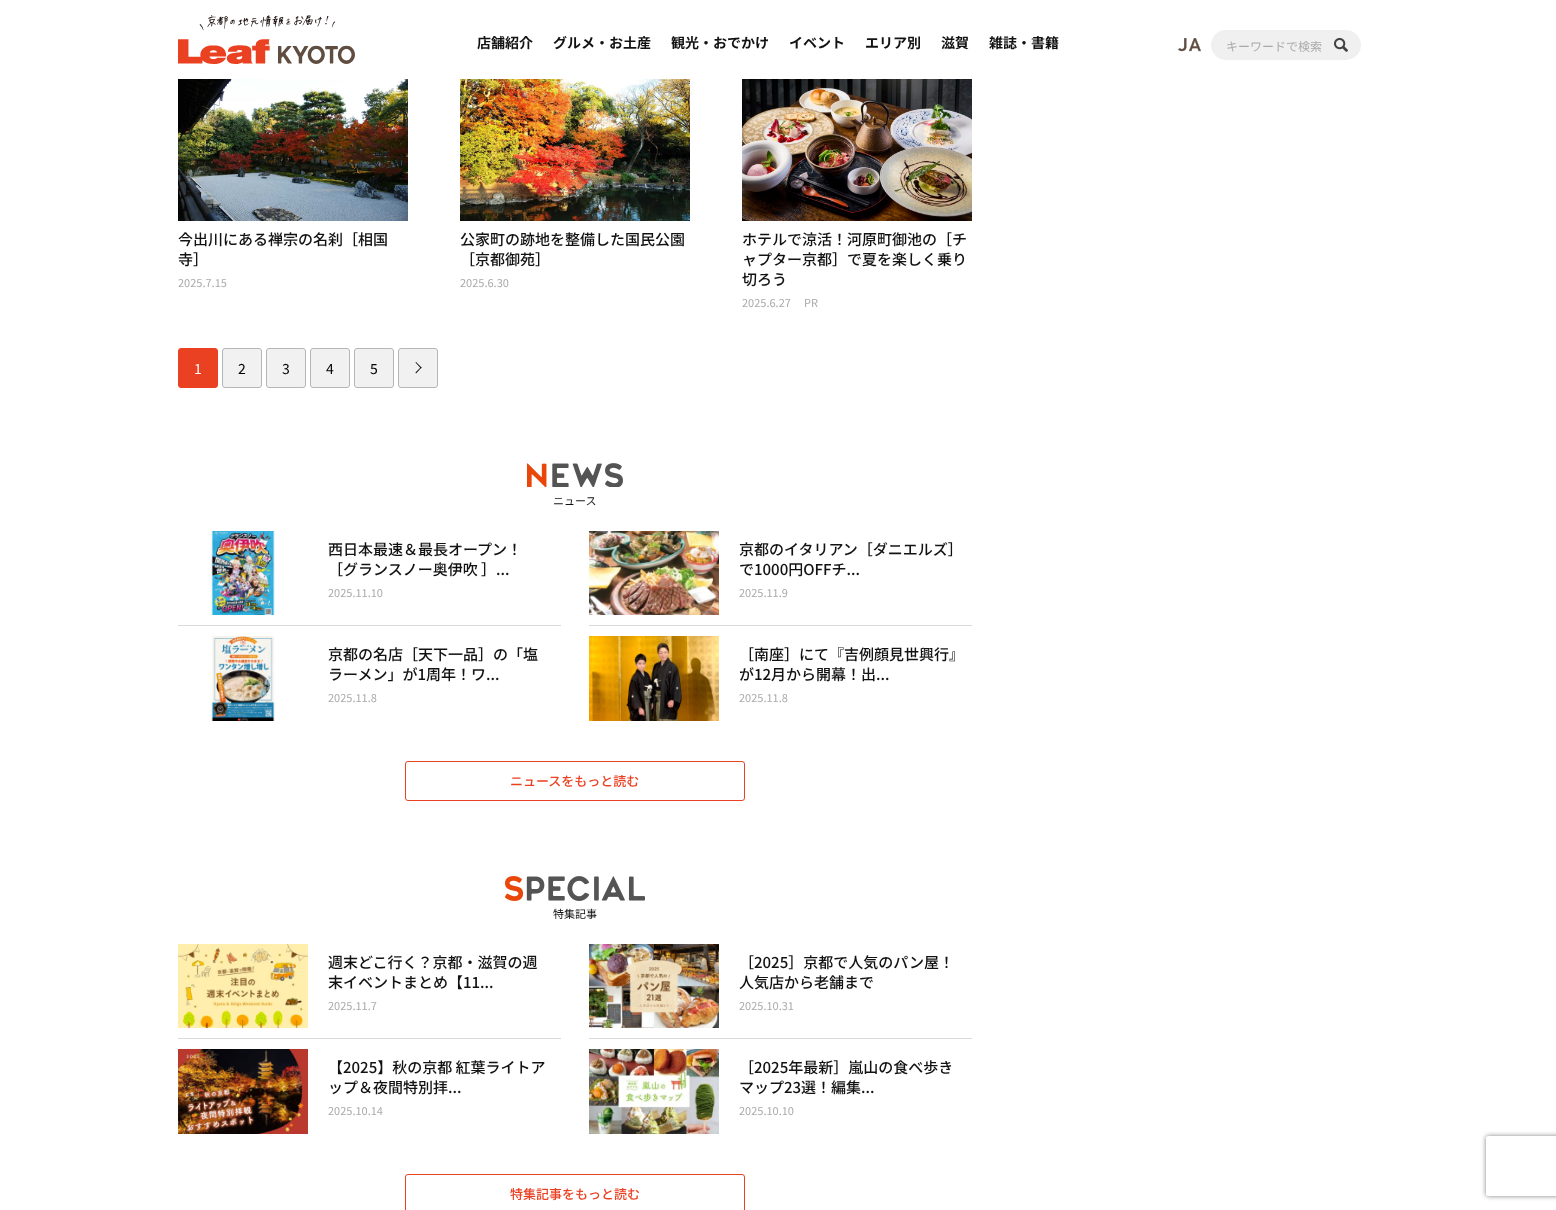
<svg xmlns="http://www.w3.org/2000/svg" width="1556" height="1210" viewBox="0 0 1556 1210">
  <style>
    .t1 { font: bold 14px Noto Sans JP; fill: #121212; }
    .t2 { font: 12px Noto Sans JP; fill: #aaa; }
    .t3 { font: 500 15px Noto Sans JP; fill: #121212; }
    .t4 { font: 11px Noto Sans JP; fill: #aaa; }
    .t5 { font: 14px Noto Sans JP; fill: #fff; }
    .t6 { font: 14px Noto Sans JP; fill: #030303; }
    .t7 { font: 11px Noto Sans JP; fill: #121212; }
    .t8 { font: 500 13px Noto Sans JP; fill: #ea4123; }
  </style>
  <defs>
    <clipPath id="clip1"><path d="M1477 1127H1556V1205H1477ZM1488 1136H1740C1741 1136 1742 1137 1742 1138V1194C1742 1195 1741 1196 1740 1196H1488C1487 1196 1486 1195 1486 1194V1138C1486 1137 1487 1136 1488 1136Z" clip-rule="evenodd"/></clipPath>
  </defs>
  <rect width="100%" height="100%" fill="#fff"/>
  <image x="178" y="15" width="177" height="49" href="images/1.png"/>
  <text x="477" y="48" class="t1">店舗紹介</text>
  <text x="553" y="48" class="t1">グルメ・お土産</text>
  <text x="671" y="48" class="t1">観光・おでかけ</text>
  <text x="789" y="48" class="t1">イベント</text>
  <text x="865" y="48" class="t1">エリア別</text>
  <text x="941" y="48" class="t1">滋賀</text>
  <text x="989" y="48" class="t1">雑誌・書籍</text>
  <image x="1178" y="38" width="23" height="14" href="images/2.png"/>
  <rect x="1211" y="30" width="150" height="30" rx="15" fill="#f0f0f0"/>
  <text x="1226" y="51" class="t2">キーワードで検索</text>
  <image x="1334" y="38" width="14" height="14" href="images/3.png"/>
  <image x="178" y="79" width="230" height="142" href="images/4.png"/>
  <text x="178" y="245" class="t3">今出川にある禅宗の名刹［相国</text>
  <text x="178" y="265" class="t3">寺］</text>
  <text x="178" y="287" class="t4">2025.7.15</text>
  <image x="460" y="79" width="230" height="142" href="images/5.png"/>
  <text x="460" y="245" class="t3">公家町の跡地を整備した国民公園</text>
  <text x="460" y="265" class="t3">［京都御苑］</text>
  <text x="460" y="287" class="t4">2025.6.30</text>
  <image x="742" y="79" width="230" height="142" href="images/6.png"/>
  <text x="742" y="245" class="t3">ホテルで涼活！河原町御池の［チ</text>
  <text x="742" y="265" class="t3">ャプター京都］で夏を楽しく乗り</text>
  <text x="742" y="285" class="t3">切ろう</text>
  <text x="742" y="307" class="t4">2025.6.27</text>
  <text x="804" y="307" class="t4">PR</text>
  <rect x="178.5" y="348.5" width="39" height="39" rx="2.5" fill="#ea4123" stroke="#ea4123"/>
  <text x="194" y="374" class="t5">1</text>
  <rect x="222.5" y="348.5" width="39" height="39" rx="2.5" fill="#f1f1f1" stroke="#b7b6b6"/>
  <text x="238" y="374" class="t6">2</text>
  <rect x="266.5" y="348.5" width="39" height="39" rx="2.5" fill="#f1f1f1" stroke="#b7b6b6"/>
  <text x="282" y="374" class="t6">3</text>
  <rect x="310.5" y="348.5" width="39" height="39" rx="2.5" fill="#f1f1f1" stroke="#b7b6b6"/>
  <text x="326" y="374" class="t6">4</text>
  <rect x="354.5" y="348.5" width="39" height="39" rx="2.5" fill="#f1f1f1" stroke="#b7b6b6"/>
  <text x="370" y="374" class="t6">5</text>
  <rect x="398.5" y="348.5" width="39" height="39" rx="2.5" fill="#f1f1f1" stroke="#b7b6b6"/>
  <path d="M416 362L421.5 367.5L421 368.5L415.5 362.5Z" fill="#030303"/>
  <path d="M421 367L421.5 367.5L416 373.5L415.5 372.5Z" fill="#030303"/>
  <image x="527" y="463" width="96" height="24" href="images/7.png"/>
  <text x="553" y="505" class="t7">ニュース</text>
  <image x="210" y="531" width="65" height="84" href="images/8.png"/>
  <text x="328" y="555" class="t3">西日本最速＆最長オープン！</text>
  <text x="328" y="575" class="t3">［グランスノー奥伊吹 ］...</text>
  <text x="328" y="597" class="t4">2025.11.10</text>
  <image x="589" y="531" width="130" height="84" href="images/9.png"/>
  <text x="739" y="555" class="t3">京都のイタリアン［ダニエルズ］</text>
  <text x="739" y="575" class="t3">で1000円OFFチ...</text>
  <text x="739" y="597" class="t4">2025.11.9</text>
  <rect x="178" y="625" width="383" height="1" fill="#dadada"/>
  <image x="209" y="636" width="66" height="85" href="images/10.png"/>
  <text x="328" y="660" class="t3">京都の名店［天下一品］の「塩</text>
  <text x="328" y="680" class="t3">ラーメン」が1周年！ワ...</text>
  <text x="328" y="702" class="t4">2025.11.8</text>
  <rect x="589" y="625" width="383" height="1" fill="#dadada"/>
  <image x="589" y="636" width="130" height="85" href="images/11.png"/>
  <text x="739" y="660" class="t3">［南座］にて『吉例顔見世興行』</text>
  <text x="739" y="680" class="t3">が12月から開幕！出...</text>
  <text x="739" y="702" class="t4">2025.11.8</text>
  <rect x="405.5" y="761.5" width="339" height="39" rx="2.5" fill="none" stroke="#ea4123"/>
  <text x="510" y="786" class="t8">ニュースをもっと読む</text>
  <image x="505" y="876" width="140" height="25" href="images/12.png"/>
  <text x="553" y="918" class="t7">特集記事</text>
  <image x="178" y="944" width="130" height="84" href="images/13.png"/>
  <text x="328" y="968" class="t3">週末どこ行く？京都・滋賀の週</text>
  <text x="328" y="988" class="t3">末イベントまとめ【11...</text>
  <text x="328" y="1010" class="t4">2025.11.7</text>
  <image x="589" y="944" width="130" height="84" href="images/14.png"/>
  <text x="739" y="968" class="t3">［2025］京都で人気のパン屋！</text>
  <text x="739" y="988" class="t3">人気店から老舗まで</text>
  <text x="739" y="1010" class="t4">2025.10.31</text>
  <rect x="178" y="1038" width="383" height="1" fill="#dadada"/>
  <image x="178" y="1049" width="130" height="85" href="images/15.png"/>
  <text x="328" y="1073" class="t3">【2025】秋の京都 紅葉ライトア</text>
  <text x="328" y="1093" class="t3">ップ＆夜間特別拝...</text>
  <text x="328" y="1115" class="t4">2025.10.14</text>
  <rect x="589" y="1038" width="383" height="1" fill="#dadada"/>
  <image x="589" y="1049" width="130" height="85" href="images/16.png"/>
  <text x="739" y="1073" class="t3">［2025年最新］嵐山の食べ歩き</text>
  <text x="739" y="1093" class="t3">マップ23選！編集...</text>
  <text x="739" y="1115" class="t4">2025.10.10</text>
  <rect x="405.5" y="1174.5" width="339" height="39" rx="2.5" fill="none" stroke="#ea4123"/>
  <text x="510" y="1199" class="t8">特集記事をもっと読む</text>
  <g clip-path="url(#clip1)">
    <rect x="1486" y="1136" width="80" height="60" rx="2" fill="#808080" filter="blur(2.5px)"/>
  </g>
</svg>
